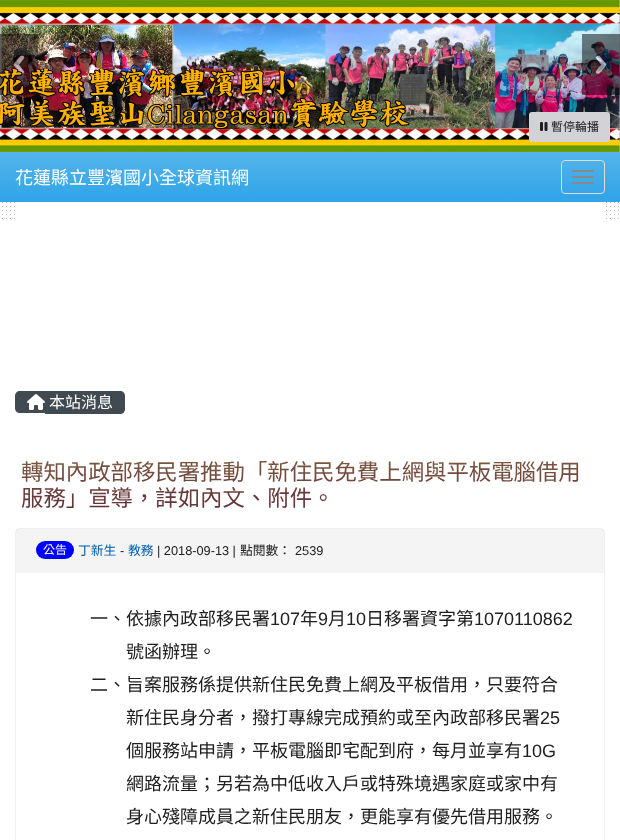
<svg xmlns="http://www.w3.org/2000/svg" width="620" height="840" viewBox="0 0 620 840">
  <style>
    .t1 { font: 12px Noto Sans CJK TC; fill: #202020; }
    .t2 { font: 18px Noto Sans CJK TC; fill: #fff; }
    .t3 { font: 16px Noto Sans CJK TC; fill: #fff; }
    .t4 { font: 22.4px Noto Sans CJK TC; fill: url(#g1); }
    .t5 { font: 12px Noto Sans CJK TC; fill: #fff; }
    .t6 { font: 12.75px Noto Sans CJK TC; fill: #005ca8; }
    .t7 { font: 12.75px Liberation Sans; fill: #202020; }
    .t8 { font: 12.75px Noto Sans CJK TC; fill: #202020; }
    .t9 { font: 18px Noto Sans CJK TC; fill: #202020; }
    .t10 { font: 18px Liberation Sans; fill: #202020; }
  </style>
  <defs>
    <linearGradient id="g1" gradientUnits="userSpaceOnUse" x1="310" y1="454" x2="310" y2="518"><stop offset="0" stop-color="#7e5c40"/><stop offset="1" stop-color="#5c2938"/></linearGradient>
    <linearGradient id="g2" gradientUnits="userSpaceOnUse" x1="310" y1="152" x2="310" y2="202"><stop offset="0" stop-color="#54b4eb"/><stop offset="1" stop-color="#2fa4e7"/></linearGradient>
  </defs>
  <rect width="100%" height="100%" fill="#fff"/>
  <image x="0" y="151" width="620" height="71" href="images/1.png"/>
  <rect x="15" y="151" width="590" height="71" fill="#fff"/>
  <image x="0" y="0" width="620" height="152" href="images/3.png"/>
  <image x="0" y="34" width="38" height="61" href="images/4.png"/>
  <image x="0" y="69" width="410" height="60" href="images/2.png"/>
  <image x="582" y="34" width="38" height="61" href="images/5.png"/>
  <rect x="529" y="112" width="81" height="30" rx="3" fill="#d3d2d6"/>
  <image x="540" y="122" width="8" height="9" href="images/6.png"/>
  <text x="551" y="131" class="t1">暫停輪播</text>
  <rect x="0" y="152" width="620" height="50" fill="url(#g2)"/>
  <text x="15" y="184" class="t2">花蓮縣立豐濱國小全球資訊網</text>
  <rect x="561.5" y="160.5" width="43" height="33" rx="3.5" fill="none" stroke="#ddd"/>
  <rect x="572" y="170" width="22" height="2" rx="1" fill="#888"/>
  <rect x="572" y="176" width="22" height="2" rx="1" fill="#888"/>
  <rect x="572" y="182" width="22" height="2" rx="1" fill="#888"/>
  <path d="M20 391H45V413H20C17 413 15 411 15 408V396C15 393 17 391 20 391Z" fill="#404a50"/>
  <path d="M45 391H120C123 391 125 393 125 396V409C125 412 123 414 120 414H45Z" fill="#404a50"/>
  <image x="27" y="394" width="18" height="16" href="images/7.png"/>
  <text x="49" y="408" class="t3">本站消息</text>
  <text x="21" y="480" class="t4">轉知內政部移民署推動「新住民免費上網與平板電腦借用</text>
  <text x="21" y="506" class="t4">服務」宣導，詳如內文、附件。</text>
  <rect x="15.5" y="528.5" width="589" height="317" rx="4.5" fill="none" stroke="#efefef"/>
  <rect x="16" y="529" width="588" height="44" fill="#c8c8c833"/>
  <rect x="36" y="541" width="38" height="18" rx="9" fill="#00f"/>
  <text x="43" y="554" class="t5">公告</text>
  <text x="78" y="555" class="t6">丁新生</text>
  <text x="120" y="555" class="t7">-</text>
  <text x="128" y="555" class="t6">教務</text>
  <text x="157" y="555" class="t7">| 2018-09-13 |</text>
  <text x="240" y="555" class="t8">點閱數：</text>
  <text x="295" y="555" class="t7">2539</text>
  <text x="90" y="625" class="t9">一、依據內政部移民署</text>
  <text x="270" y="625" class="t10">107</text>
  <text x="300" y="625" class="t9">年</text>
  <text x="318" y="625" class="t10">9</text>
  <text x="328" y="625" class="t9">月</text>
  <text x="346" y="625" class="t10">10</text>
  <text x="366" y="625" class="t9">日移署資字第</text>
  <text x="474" y="625" class="t10">1070110862</text>
  <text x="126" y="658" class="t9">號函辦理。</text>
  <text x="90" y="691" class="t9">二、旨案服務係提供新住民免費上網及平板借用，只要符合</text>
  <text x="126" y="724" class="t9">新住民身分者，撥打專線完成預約或至內政部移民署</text>
  <text x="540" y="724" class="t10">25</text>
  <text x="126" y="757" class="t9">個服務站申請，平板電腦即宅配到府，每月並享有</text>
  <text x="522" y="757" class="t10">10G</text>
  <text x="126" y="790" class="t9">網路流量；另若為中低收入戶或特殊境遇家庭或家中有</text>
  <text x="126" y="823" class="t9">身心殘障成員之新住民朋友，更能享有優先借用服務。</text>
</svg>
